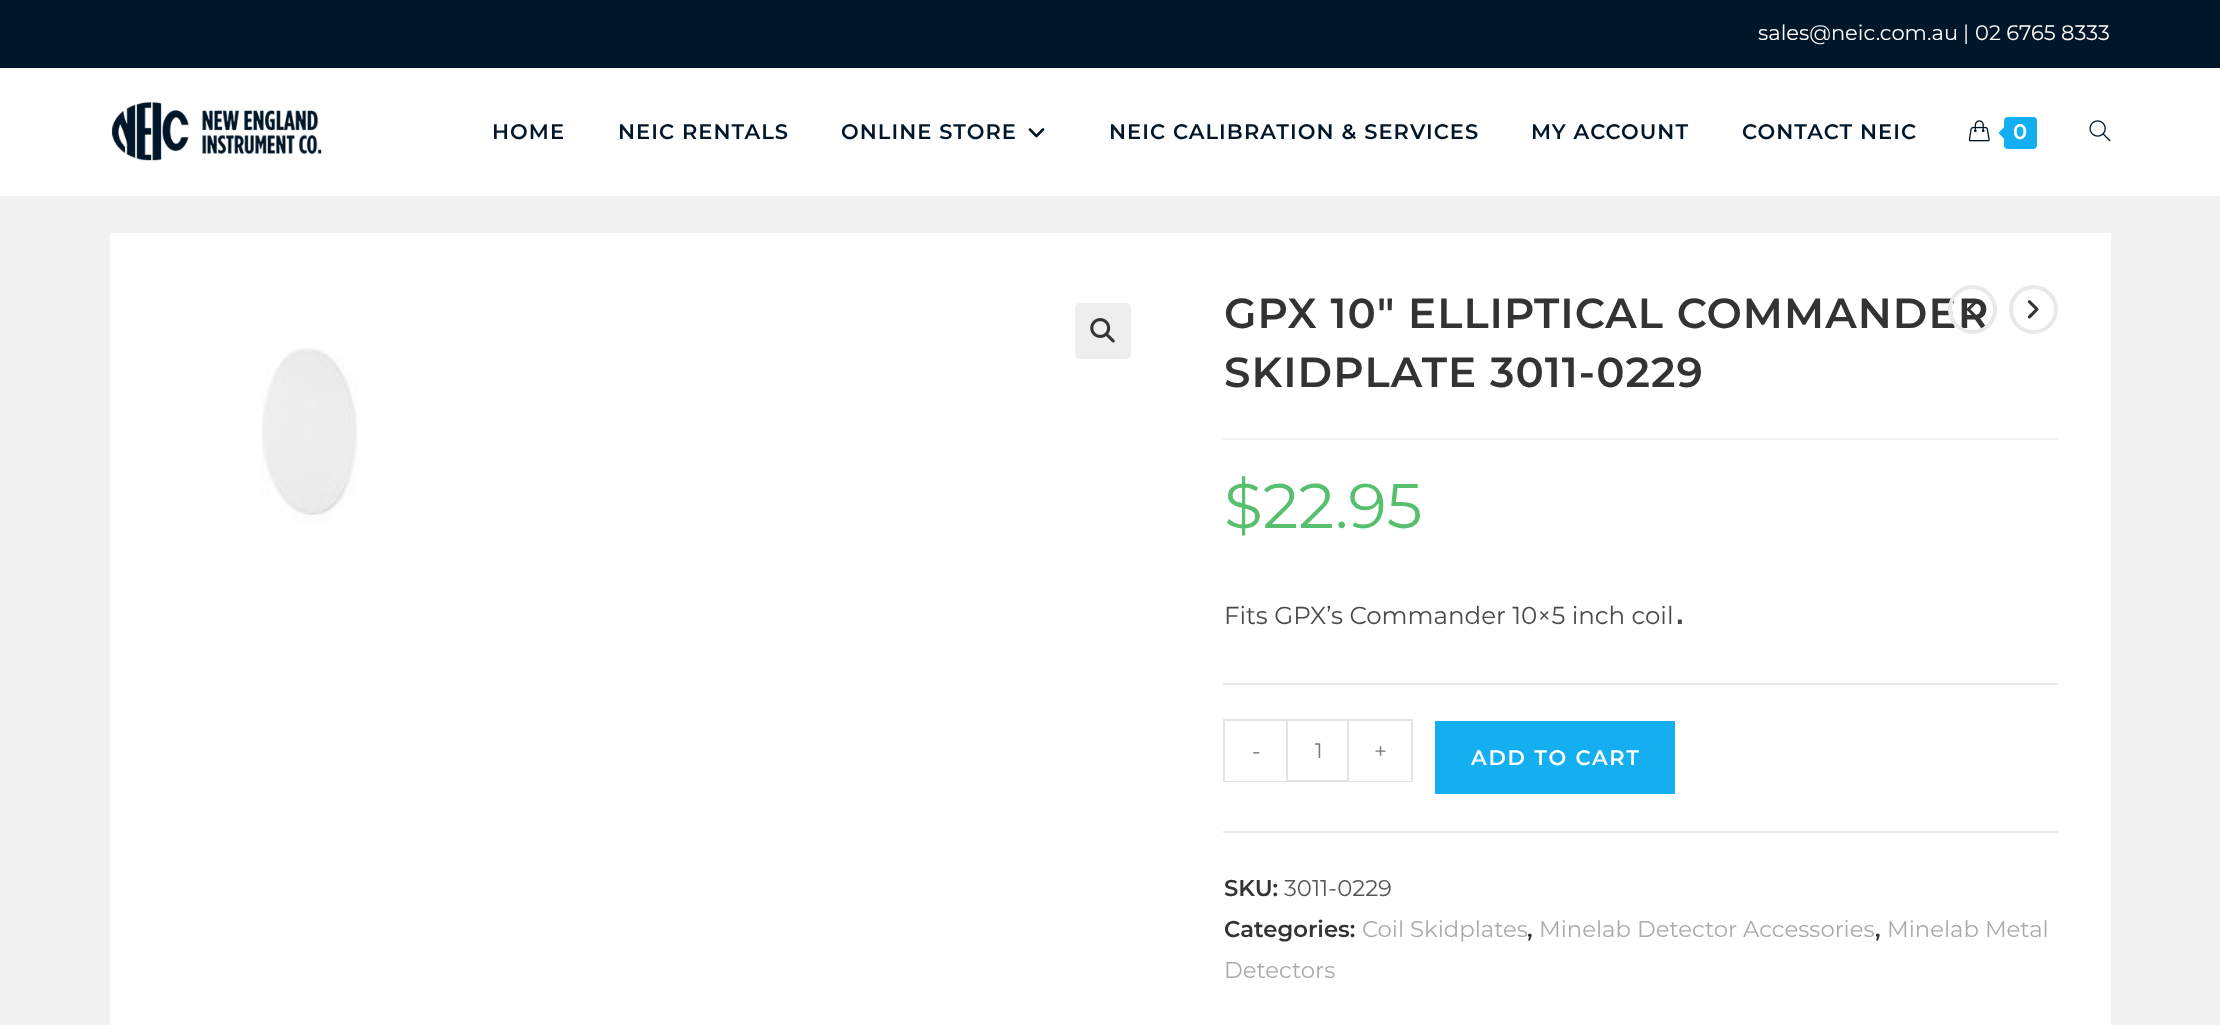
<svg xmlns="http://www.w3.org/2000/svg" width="2220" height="1025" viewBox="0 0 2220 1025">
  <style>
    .t1 { font: 21px Montserrat; fill: #fff; }
    .t2 { font: 21px Montserrat; fill: #f2f3f4; }
    .t3 { font: 600 21px Montserrat; letter-spacing: 1.05px; fill: #011628; }
    .t4 { font: 600 21px Montserrat; fill: #fff; }
    .t5 { font: 600 42px Montserrat; letter-spacing: 1.05px; fill: #333; }
    .t6 { font: 63px Montserrat; fill: #57bf6d; }
    .t7 { font: 24.5px Montserrat; fill: #4a4a4a; }
    .t8 { font: 42px Liberation Sans; fill: #4a4a4a; }
    .t9 { font: 22.75px Montserrat; fill: #777; }
    .t10 { font: 21px Montserrat; fill: #777; }
    .t11 { font: 600 21px Montserrat; letter-spacing: 1.75px; fill: #fff; }
    .t12 { font: 600 22.75px Montserrat; fill: #333; }
    .t13 { font: 22.75px Montserrat; fill: #555; }
    .t14 { font: 22.75px Montserrat; fill: #ababab; }
  </style>
  <rect width="100%" height="100%" fill="#f1f1f1"/>
  <rect x="0" y="0" width="2220" height="68" fill="#011628"/>
  <text x="1758" y="40" class="t1">sales@neic.com.au</text>
  <text x="1963" y="40" class="t2">|</text>
  <text x="1975" y="40" class="t1">02 6765 8333</text>
  <rect x="0" y="68" width="2220" height="128" fill="#fff"/>
  <image x="111" y="102" width="211" height="59" href="images/1.png"/>
  <text x="492" y="139" class="t3">HOME</text>
  <text x="618" y="139" class="t3">NEIC RENTALS</text>
  <text x="841" y="139" class="t3">ONLINE STORE</text>
  <image x="1028" y="128" width="17" height="10" href="images/2.png"/>
  <text x="1109" y="139" class="t3">NEIC CALIBRATION &amp; SERVICES</text>
  <text x="1531" y="139" class="t3">MY ACCOUNT</text>
  <text x="1742" y="139" class="t3">CONTACT NEIC</text>
  <image x="1968" y="120" width="22" height="22" href="images/3.png"/>
  <rect x="2004" y="117" width="33" height="32" rx="4" fill="#13aff0"/>
  <path d="M2007 124V142L1998.5 133Z" fill="#13aff0"/>
  <text x="2013" y="139" class="t4">0</text>
  <image x="2089" y="120" width="22" height="22" href="images/4.png"/>
  <rect x="110" y="233" width="2001" height="792" fill="#fff"/>
  <text x="1224" y="328" class="t5">GPX 10″ ELLIPTICAL COMMANDER</text>
  <circle cx="1972.5" cy="309.5" r="22.5" fill="none" stroke="#e9e9e9" stroke-width="4"/>
  <image x="1967" y="303" width="10" height="12" href="images/5.png"/>
  <circle cx="2033.5" cy="309.5" r="22.5" fill="none" stroke="#e9e9e9" stroke-width="4"/>
  <image x="2027" y="300" width="12" height="19" href="images/6.png"/>
  <rect x="1075" y="303" width="56" height="56" rx="5" fill="#eee"/>
  <image x="1090" y="318" width="25" height="25" href="images/7.png"/>
  <image x="261" y="348" width="97" height="175" href="images/8.png"/>
  <rect x="1223" y="438" width="835" height="2" fill="#f1f1f1"/>
  <text x="1224" y="387" class="t5">SKIDPLATE 3011-0229</text>
  <text x="1224" y="528" class="t6">$22.95</text>
  <text x="1224" y="624" class="t7">Fits GPX’s Commander 10×5 inch coil</text>
  <text x="1674" y="624" class="t8">.</text>
  <rect x="1223" y="683" width="835" height="2" fill="#eaeaea"/>
  <rect x="1223" y="831" width="835" height="2" fill="#eaeaea"/>
  <rect x="1223" y="719" width="63" height="2" fill="#e4e4e4"/>
  <rect x="1223" y="781" width="63" height="1" fill="#e4e4e4"/>
  <rect x="1223" y="719" width="2" height="63" fill="#e4e4e4"/>
  <text x="1252" y="759" class="t9">-</text>
  <rect x="1287" y="720" width="61" height="61" fill="none" stroke="#e4e4e4" stroke-width="2"/>
  <text x="1315" y="758" class="t10">1</text>
  <rect x="1349" y="719" width="63" height="2" fill="#e4e4e4"/>
  <rect x="1411" y="719" width="2" height="63" fill="#e4e4e4"/>
  <rect x="1349" y="781" width="63" height="1" fill="#e4e4e4"/>
  <text x="1374" y="759" class="t9">+</text>
  <rect x="1435" y="721" width="240" height="73" fill="#13aff0"/>
  <text x="1471" y="765" class="t11">ADD TO CART</text>
  <text x="1224" y="896" class="t12">SKU:</text>
  <text x="1284" y="896" class="t13">3011-0229</text>
  <text x="1224" y="937" class="t12">Categories:</text>
  <text x="1362" y="937" class="t14">Coil Skidplates</text>
  <text x="1527" y="937" class="t12">,</text>
  <text x="1539" y="937" class="t14">Minelab Detector Accessories</text>
  <text x="1875" y="937" class="t12">,</text>
  <text x="1887" y="937" class="t14">Minelab Metal</text>
  <text x="1224" y="978" class="t14">Detectors</text>
</svg>
